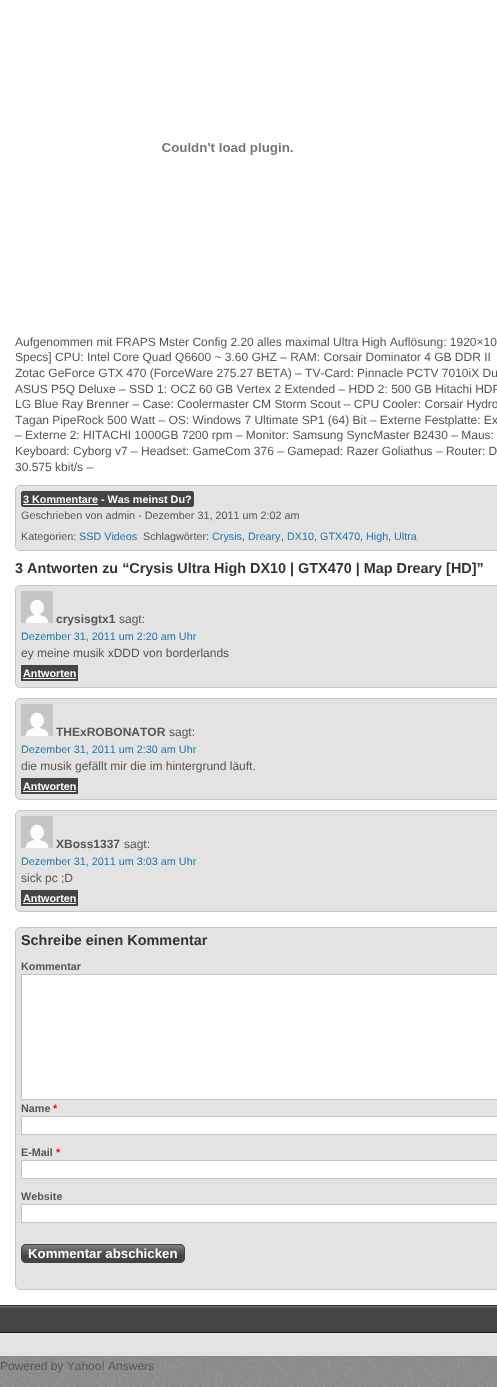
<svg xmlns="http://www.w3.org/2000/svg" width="497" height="1387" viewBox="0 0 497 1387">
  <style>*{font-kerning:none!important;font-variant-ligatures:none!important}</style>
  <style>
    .t1 { font: 12px Liberation Sans; fill: #555; }
    .t2 { font: bold 10.8px Liberation Sans; fill: #fff; }
    .t3 { font: 10.8px Liberation Sans; fill: #555; }
    .t4 { font: 10.8px Liberation Sans; fill: #2175ac; }
    .t5 { font: bold 14.4px Liberation Sans; fill: #333; }
    .t6 { font: bold 12px Liberation Sans; fill: #555; }
    .t7 { font: bold 10.8px Liberation Sans; fill: #555; }
    .t8 { font: bold 10.8px Liberation Sans; fill: #f00; }
    .t9 { font: bold 13.25px Liberation Sans; fill: #fff; }
  </style>
  <rect width="100%" height="100%" fill="#8a8a8a"/>
  <image x="0" y="1357" width="497" height="30" href="images/1.png"/>
  <rect x="0" y="0" width="497" height="1305" fill="#fff"/>
  <image x="162" y="143" width="131" height="12" href="images/2.png"/>
  <text x="15" y="346" class="t1">Aufgenommen mit FRAPS Mster Config 2.20 alles maximal Ultra High Auflösung: 1920×10</text>
  <text x="15" y="361" class="t1">Specs] CPU: Intel Core Quad Q6600 ~ 3.60 GHZ – RAM: Corsair Dominator 4 GB DDR II</text>
  <text x="15" y="377" class="t1">Zotac GeForce GTX 470 (ForceWare 275.27 BETA) – TV-Card: Pinnacle PCTV 7010iX Du</text>
  <text x="15" y="393" class="t1">ASUS P5Q Deluxe – SSD 1: OCZ 60 GB Vertex 2 Extended – HDD 2: 500 GB Hitachi HDP</text>
  <text x="15" y="408" class="t1">LG Blue Ray Brenner – Case: Coolermaster CM Storm Scout – CPU Cooler: Corsair Hydro</text>
  <text x="15" y="424" class="t1">Tagan PipeRock 500 Watt – OS: Windows 7 Ultimate SP1 (64) Bit – Externe Festplatte: Ex</text>
  <text x="15" y="439" class="t1">– Externe 2: HITACHI 1000GB 7200 rpm – Monitor: Samsung SyncMaster B2430 – Maus:</text>
  <text x="15" y="455" class="t1">Keyboard: Cyborg v7 – Headset: GameCom 376 – Gamepad: Razer Goliathus – Router: D</text>
  <text x="15" y="471" class="t1">30.575 kbit/s –</text>
  <rect x="15.5" y="485.5" width="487" height="65" rx="4.5" fill="#e3e3e3" stroke="#c6c6c6"/>
  <path d="M24 491H98V507H24C22.5 507 21 505.5 21 504V494C21 492.5 22.5 491 24 491Z" fill="#444"/>
  <path d="M24 491H98V507H24C22 507 21 506 21 504V494C21 492 22 491 24 491ZM24 492H98V506H24C23 506 22 505 22 504V494C22 493 23 492 24 492Z" fill="#444" fill-rule="evenodd"/>
  <path d="M98 491H191C192.5 491 194 492.5 194 494V504C194 505.5 192.5 507 191 507H98Z" fill="#444"/>
  <path d="M98 491H191C193 491 194 492 194 494V504C194 506 193 507 191 507H98ZM98 492H191C192 492 193 493 193 494V504C193 505 192 506 191 506H98Z" fill="#444" fill-rule="evenodd"/>
  <text x="23" y="503" class="t2">3 Kommentare - Was meinst Du?</text>
  <rect x="23" y="504" width="75" height="1" fill="#fff"/>
  <text x="21" y="519" class="t3">Geschrieben von admin - Dezember 31, 2011 um 2:02 am</text>
  <text x="21" y="540" class="t3">Kategorien:</text>
  <text x="79" y="540" class="t4">SSD Videos</text>
  <text x="143" y="540" class="t3">Schlagwörter:</text>
  <text x="212" y="540" class="t4">Crysis</text>
  <text x="242" y="540" class="t3">,</text>
  <text x="248" y="540" class="t4">Dreary</text>
  <text x="281" y="540" class="t3">,</text>
  <text x="287" y="540" class="t4">DX10</text>
  <text x="314" y="540" class="t3">,</text>
  <text x="320" y="540" class="t4">GTX470</text>
  <text x="360" y="540" class="t3">,</text>
  <text x="366" y="540" class="t4">High</text>
  <text x="388" y="540" class="t3">,</text>
  <text x="394" y="540" class="t4">Ultra</text>
  <text x="15" y="573" class="t5">3 Antworten zu “Crysis Ultra High DX10 | GTX470 | Map Dreary [HD]”</text>
  <rect x="15.5" y="585.5" width="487" height="102" rx="4.5" fill="#e3e3e3" stroke="#c6c6c6"/>
  <image x="21" y="591" width="32" height="32" href="images/3.png"/>
  <text x="56" y="623" class="t6">crysisgtx1</text>
  <text x="119" y="623" class="t1">sagt:</text>
  <text x="21" y="640" class="t4">Dezember 31, 2011 um 2:20 am Uhr</text>
  <text x="21" y="657" class="t1">ey meine musik xDDD von borderlands</text>
  <rect x="21" y="665" width="57" height="16" fill="#444"/>
  <text x="23" y="677" class="t2">Antworten</text>
  <rect x="23" y="678" width="53" height="1" fill="#fff"/>
  <rect x="15.5" y="698.5" width="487" height="101" rx="4.5" fill="#e3e3e3" stroke="#c6c6c6"/>
  <image x="21" y="704" width="32" height="32" href="images/3.png"/>
  <text x="56" y="736" class="t6">THExROBONATOR</text>
  <text x="169" y="736" class="t1">sagt:</text>
  <text x="21" y="753" class="t4">Dezember 31, 2011 um 2:30 am Uhr</text>
  <text x="21" y="770" class="t1">die musik gefällt mir die im hintergrund läuft.</text>
  <rect x="21" y="778" width="57" height="16" fill="#444"/>
  <text x="23" y="790" class="t2">Antworten</text>
  <rect x="23" y="791" width="53" height="1" fill="#fff"/>
  <rect x="15.5" y="810.5" width="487" height="101" rx="4.5" fill="#e3e3e3" stroke="#c6c6c6"/>
  <image x="21" y="816" width="32" height="32" href="images/3.png"/>
  <text x="56" y="848" class="t6">XBoss1337</text>
  <text x="124" y="848" class="t1">sagt:</text>
  <text x="21" y="865" class="t4">Dezember 31, 2011 um 3:03 am Uhr</text>
  <text x="21" y="882" class="t1">sick pc ;D</text>
  <rect x="21" y="890" width="57" height="16" fill="#444"/>
  <text x="23" y="902" class="t2">Antworten</text>
  <rect x="23" y="903" width="53" height="1" fill="#fff"/>
  <rect x="15.5" y="927.5" width="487" height="362" rx="4.5" fill="#e3e3e3" stroke="#c6c6c6"/>
  <text x="21" y="945" class="t5">Schreibe einen Kommentar</text>
  <text x="21" y="970" class="t7">Kommentar</text>
  <rect x="21.5" y="974.5" width="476" height="125" fill="#fff" stroke="#c6c6c6"/>
  <text x="21" y="1112" class="t7">Name</text>
  <text x="53" y="1112" class="t8">*</text>
  <rect x="21.5" y="1116.5" width="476" height="18" fill="#fff" stroke="#c6c6c6"/>
  <text x="21" y="1156" class="t7">E-Mail</text>
  <text x="56" y="1156" class="t8">*</text>
  <rect x="21.5" y="1160.5" width="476" height="18" fill="#fff" stroke="#c6c6c6"/>
  <text x="21" y="1200" class="t7">Website</text>
  <rect x="21.5" y="1204.5" width="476" height="18" fill="#fff" stroke="#c6c6c6"/>
  <rect x="21" y="1244" width="164" height="19" rx="5" fill="#444"/>
  <image x="21" y="1245" width="164" height="10" href="images/4.png"/>
  <rect x="21.5" y="1244.5" width="163" height="18" rx="4.5" fill="none" stroke="#444"/>
  <text x="28" y="1258" class="t9">Kommentar abschicken</text>
  <rect x="0" y="1305" width="497" height="27" fill="#444"/>
  <image x="0" y="1305" width="497" height="4" href="images/5.png"/>
  <rect x="0" y="1332" width="497" height="25" fill="#e3e3e3"/>
  <image x="0" y="1332" width="497" height="25" href="images/6.png"/>
  <text x="0" y="1370" class="t1">Powered by Yahoo! Answers</text>
</svg>
